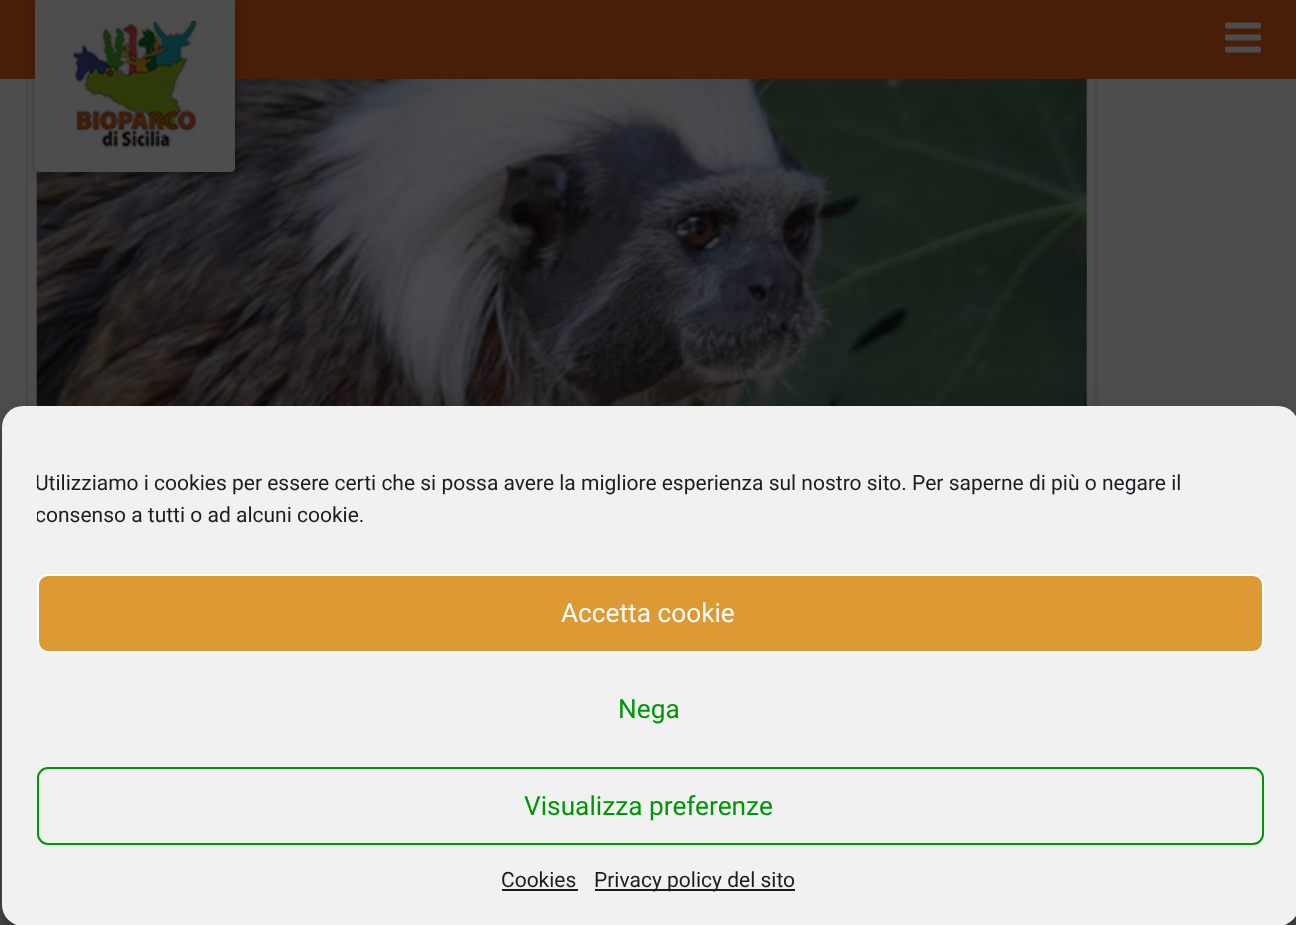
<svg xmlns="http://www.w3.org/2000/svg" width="1296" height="925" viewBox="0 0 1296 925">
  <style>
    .t1 { font: 21px Roboto; fill: #191e23; }
    .t2 { font: 26.25px Roboto; fill: #fff; }
    .t3 { font: 26.25px Roboto; fill: #009607; }
  </style>
  <defs>
    <clipPath id="clip1"><rect x="37" y="467" width="1227" height="72"/></clipPath>
  </defs>
  <rect width="100%" height="100%" fill="#4d4d4d"/>
  <rect x="27" y="-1" width="1069" height="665" fill="none" stroke="#474747" stroke-width="2"/>
  <image x="36" y="79" width="1051" height="327" href="images/1.png"/>
  <rect x="0" y="0" width="1296" height="79" fill="#491e09"/>
  <rect x="35" y="5" width="200" height="172" rx="4" fill="#00000033" filter="blur(4.5px)"/>
  <path d="M35 0H235V168C235 170 233 172 231 172H39C37 172 35 170 35 168Z" fill="#4d4d4d"/>
  <image x="73" y="21" width="123" height="127" href="images/2.png"/>
  <image x="1225" y="22" width="36" height="31" href="images/3.png"/>
  <rect x="2" y="417" width="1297" height="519" rx="21" fill="#0000003b" filter="blur(5px)"/>
  <rect x="2" y="424" width="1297" height="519" rx="21" fill="#00000030" filter="blur(17.5px)"/>
  <rect x="2" y="406" width="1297" height="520" rx="21" fill="#f1f1f1"/>
  <g clip-path="url(#clip1)">
    <text x="35" y="490" class="t1">Utilizziamo i cookies per essere certi che si possa avere la migliore esperienza sul nostro sito. Per saperne di più o negare il</text>
    <text x="35" y="522" class="t1">consenso a tutti o ad alcuni cookie.</text>
  </g>
  <rect x="38" y="575" width="1225" height="77" rx="10" fill="#d93" stroke="#fff" stroke-width="2"/>
  <text x="561" y="622" class="t2">Accetta cookie</text>
  <text x="618" y="718" class="t3">Nega</text>
  <rect x="38" y="768" width="1225" height="76" rx="10" fill="none" stroke="#009607" stroke-width="2"/>
  <text x="524" y="815" class="t3">Visualizza preferenze</text>
  <text x="501" y="887" class="t1">Cookies</text>
  <rect x="502" y="889" width="76" height="2" fill="#191e23"/>
  <rect x="595" y="889" width="200" height="2" fill="#191e23"/>
  <text x="594" y="887" class="t1">Privacy policy del sito</text>
</svg>
